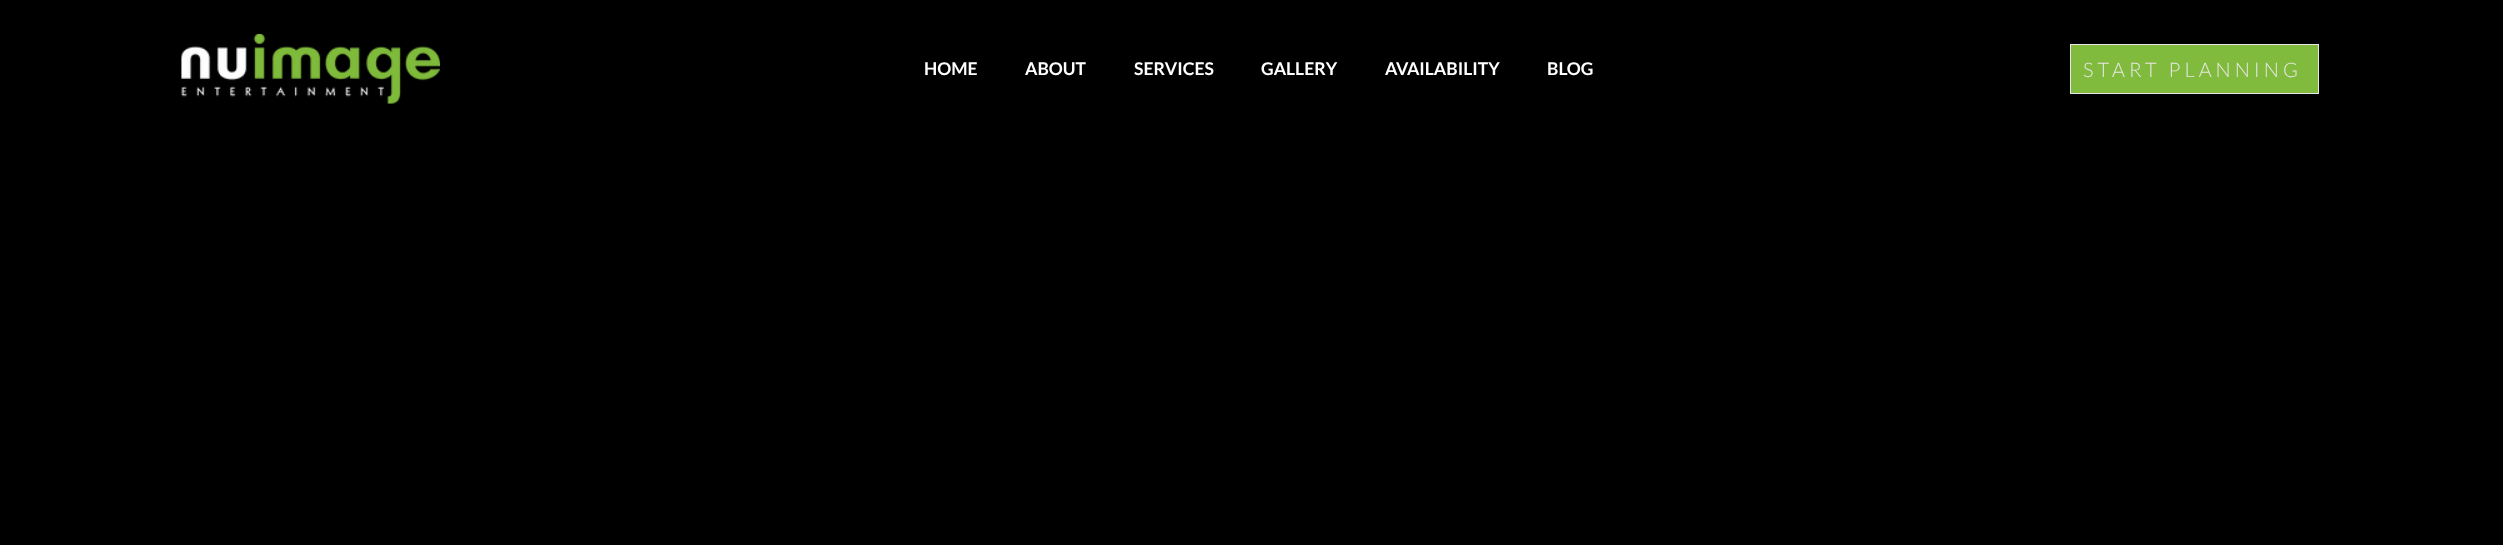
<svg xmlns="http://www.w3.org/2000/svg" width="2503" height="545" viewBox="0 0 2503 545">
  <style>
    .t1 { font: bold 17.5px Lato; fill: #fff; }
    .t2 { font: 300 20px Lato; letter-spacing: 4px; fill: #e8e6e6; }
  </style>
  <rect width="100%" height="100%" fill="#000"/>
  <image x="181" y="33" width="259" height="71" href="images/1.png"/>
  <text x="924" y="75" class="t1">HOME</text>
  <text x="1025" y="75" class="t1">ABOUT</text>
  <text x="1134" y="75" class="t1">SERVICES</text>
  <text x="1261" y="75" class="t1">GALLERY</text>
  <text x="1385" y="75" class="t1">AVAILABILITY</text>
  <text x="1547" y="75" class="t1">BLOG</text>
  <rect x="2070.5" y="44.5" width="248" height="49" fill="#81bb3d" stroke="#e8e6e6"/>
  <text x="2083" y="77" class="t2">START PLANNING</text>
</svg>
